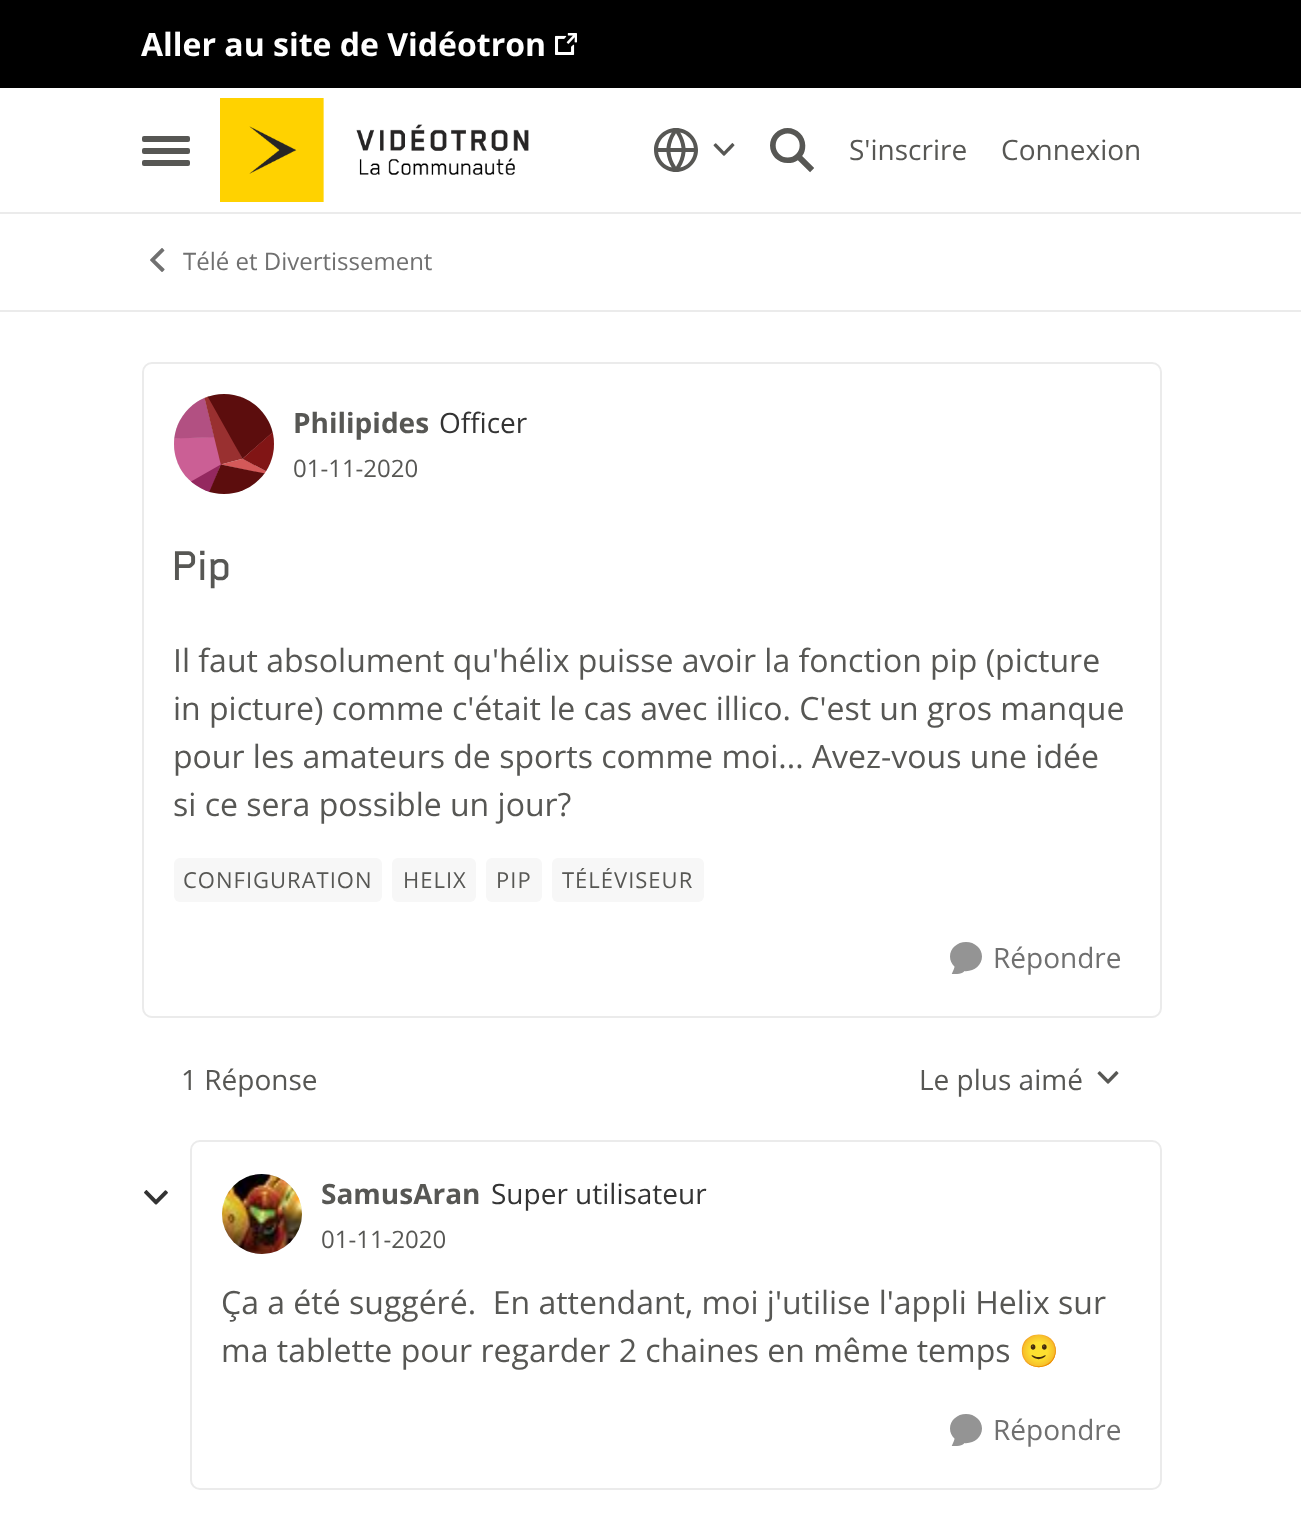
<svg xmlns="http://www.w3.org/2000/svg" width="1301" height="1538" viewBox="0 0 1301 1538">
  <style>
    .t1 { font: bold 32px Open Sans; fill: #fff; }
    .t2 { font: 28px Open Sans; fill: #575754; }
    .t3 { font: 24px Open Sans; fill: #707070; }
    .t4 { font: bold 28px Open Sans; fill: #575754; }
    .t5 { font: 28px Open Sans; fill: #333; }
    .t6 { font: 24px Open Sans; fill: #575754; }
    .t7 { font: 500 48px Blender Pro; fill: #575754; }
    .t8 { font: 32px Open Sans; fill: #575754; }
    .t9 { font: 22px Open Sans; letter-spacing: 1px; fill: #575754; }
    .t10 { font: 28px Open Sans; fill: #707070; }
    .t11 { font: 32px Noto Color Emoji; fill: #575754; }
  </style>
  <defs>
    <clipPath id="clip1"><rect x="562" y="868" width="132" height="24"/></clipPath>
  </defs>
  <rect width="100%" height="100%" fill="#fff"/>
  <rect x="0" y="0" width="1301" height="88" fill="#000"/>
  <text x="141" y="56" class="t1">Aller au site de Vidéotron</text>
  <image x="555" y="33" width="22" height="22" href="images/1.png"/>
  <rect x="0" y="212" width="1301" height="2" fill="#ebebeb"/>
  <rect x="142" y="136" width="48" height="6" rx="2" fill="#575754"/>
  <rect x="142" y="148" width="48" height="6" rx="2" fill="#575754"/>
  <rect x="142" y="160" width="48" height="6" rx="2" fill="#575754"/>
  <image x="220" y="98" width="309" height="104" href="images/2.png"/>
  <image x="654" y="128" width="44" height="44" href="images/3.png"/>
  <image x="713" y="143" width="22" height="13" href="images/4.png"/>
  <image x="770" y="128" width="44" height="45" href="images/5.png"/>
  <text x="849" y="160" class="t2">S'inscrire</text>
  <text x="1001" y="160" class="t2">Connexion</text>
  <rect x="0" y="310" width="1301" height="2" fill="#ebebeb"/>
  <image x="150" y="248" width="15" height="24" href="images/6.png"/>
  <text x="183" y="270" class="t3">Télé et Divertissement</text>
  <rect x="143" y="363" width="1018" height="654" rx="9" fill="none" stroke="#ebebeb" stroke-width="2"/>
  <circle cx="224" cy="444" r="50" fill="#d9d9d9"/>
  <image x="174" y="394" width="100" height="100" href="images/7.png"/>
  <text x="293" y="433" class="t4">Philipides</text>
  <text x="439" y="433" class="t5">Officer</text>
  <text x="293" y="477" class="t6">01-11-2020</text>
  <text x="173" y="580" class="t7">Pip</text>
  <text x="173" y="672" class="t8">Il faut absolument qu'hélix puisse avoir la fonction pip (picture</text>
  <text x="173" y="720" class="t8">in picture) comme c'était le cas avec illico. C'est un gros manque</text>
  <text x="173" y="768" class="t8">pour les amateurs de sports comme moi... Avez-vous une idée</text>
  <text x="173" y="816" class="t8">si ce sera possible un jour?</text>
  <rect x="174" y="858" width="208" height="44" rx="6" fill="#f7f7f7"/>
  <text x="183" y="888" class="t9">CONFIGURATION</text>
  <rect x="392" y="858" width="84" height="44" rx="6" fill="#f7f7f7"/>
  <text x="403" y="888" class="t9">HELIX</text>
  <rect x="486" y="858" width="56" height="44" rx="6" fill="#f7f7f7"/>
  <text x="496" y="888" class="t9">PIP</text>
  <rect x="552" y="858" width="152" height="44" rx="6" fill="#f7f7f7"/>
  <g clip-path="url(#clip1)">
    <text x="562" y="888" class="t9">TÉLÉVISEUR</text>
  </g>
  <image x="950" y="942" width="32" height="32" href="images/8.png"/>
  <text x="993" y="968" class="t10">Répondre</text>
  <text x="181" y="1090" class="t2">1 Réponse</text>
  <text x="919" y="1090" class="t2">Le plus aimé</text>
  <image x="1097" y="1071" width="22" height="13" href="images/9.png"/>
  <image x="144" y="1190" width="24" height="15" href="images/10.png"/>
  <rect x="191" y="1141" width="970" height="348" rx="9" fill="none" stroke="#ebebeb" stroke-width="2"/>
  <circle cx="262" cy="1214" r="40" fill="#d9d9d9"/>
  <image x="222" y="1174" width="80" height="80" href="images/11.png"/>
  <text x="321" y="1204" class="t4">SamusAran</text>
  <text x="491" y="1204" class="t5">Super utilisateur</text>
  <text x="321" y="1248" class="t6">01-11-2020</text>
  <text x="221" y="1314" class="t8" xml:space="preserve">Ça a été suggéré.  En attendant, moi j'utilise l'appli Helix sur</text>
  <text x="221" y="1362" class="t8">ma tablette pour regarder 2 chaines en même temps</text>
  <text x="1019" y="1362" class="t11">🙂</text>
  <image x="950" y="1414" width="32" height="32" href="images/8.png"/>
  <text x="993" y="1440" class="t10">Répondre</text>
</svg>
